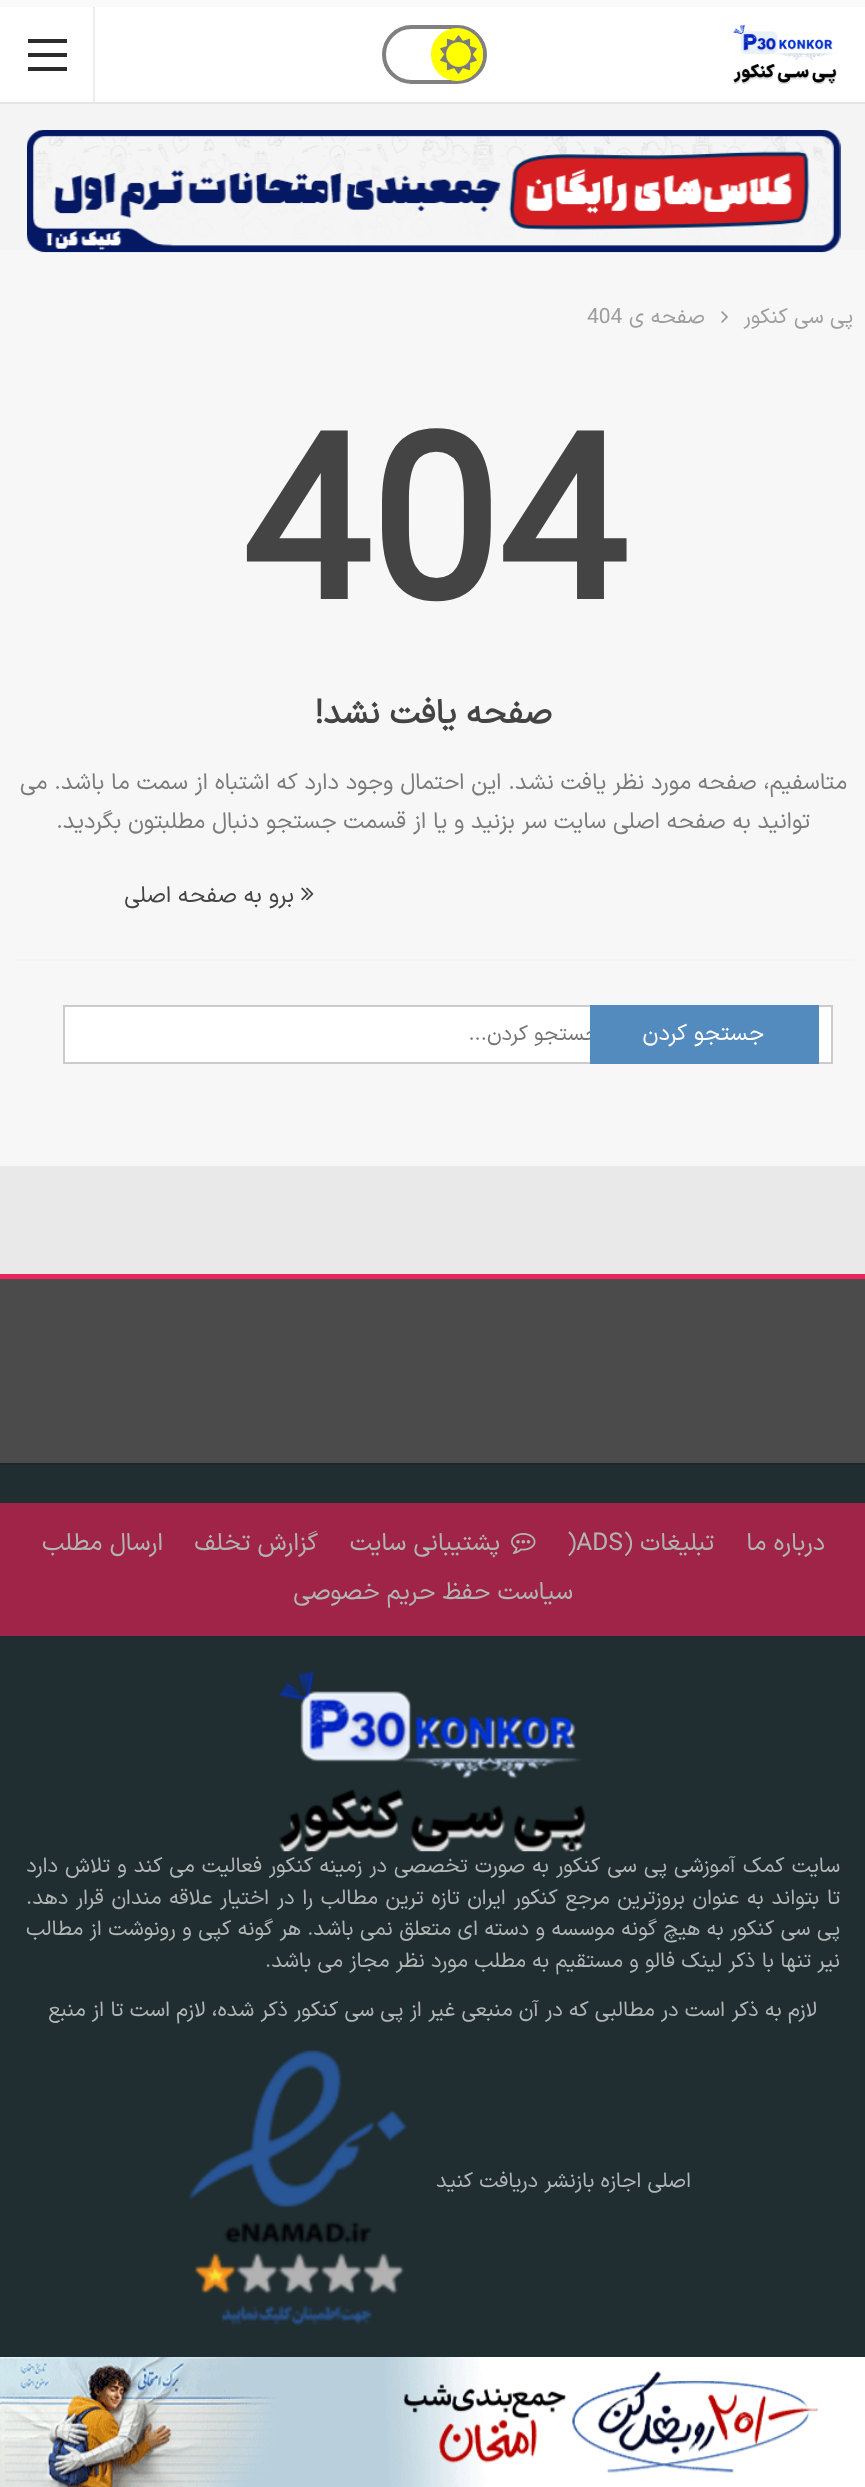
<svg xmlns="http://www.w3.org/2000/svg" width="865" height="2487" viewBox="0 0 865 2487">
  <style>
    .t1 { font: 21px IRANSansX; direction: rtl; fill: #9e9e9e; }
    .t2 { font: 21px IRANSansX; fill: #9e9e9e; }
    .t3 { font: bold 228px IRANSansX; fill: #444; }
    .t4 { font: bold 33.25px IRANSansX; direction: rtl; fill: #444; }
    .t5 { font: 22.75px IRANSansX; direction: rtl; fill: #7b7b7b; }
    .t6 { font: 22.75px IRANSansX; direction: rtl; fill: #444; }
    .t7 { font: 21px IRANSansX; direction: rtl; fill: #757575; }
    .t8 { font: 22.75px IRANSansX; direction: rtl; fill: #fff; }
    .t9 { font: 24.5px IRANSansX; direction: rtl; fill: #b2b5b5; }
    .t10 { font: 24.5px IRANSansX; fill: #b2b5b5; }
    .t11 { font: 21px IRANSansX; direction: rtl; fill: #b2b5b5; }
  </style>
  <rect width="100%" height="100%" fill="#e9e9e9"/>
  <rect x="0" y="0" width="865" height="7" fill="#fafafa"/>
  <rect x="0" y="250" width="865" height="916" fill="#f7f7f7"/>
  <rect x="0" y="7" width="865" height="95" fill="#fff"/>
  <rect x="0" y="102" width="865" height="2" fill="#e5e5e5"/>
  <image x="733" y="24" width="104" height="60" href="images/1.png"/>
  <rect x="384" y="27" width="101" height="55" rx="27.5" fill="none" stroke="#808080" stroke-width="4"/>
  <rect x="431" y="28" width="52" height="53" rx="26" fill="#ff0"/>
  <image x="440" y="35" width="37" height="39" href="images/2.png"/>
  <rect x="93" y="7" width="2" height="95" fill="#ededed"/>
  <rect x="28" y="53" width="39" height="4" fill="#2c2c2c"/>
  <rect x="28" y="39" width="39" height="4" fill="#2c2c2c"/>
  <rect x="28" y="67" width="39" height="4" fill="#2c2c2c"/>
  <rect x="0" y="104" width="865" height="146" fill="#f4f4f4"/>
  <image x="27" y="130" width="814" height="123" href="images/3.png"/>
  <text x="853" y="323" class="t1">پی سی کنکور</text>
  <image x="721" y="311" width="7" height="12" href="images/4.png"/>
  <text x="705" y="323" class="t1">صفحه ی</text>
  <text x="587" y="323" class="t2">404</text>
  <text x="241" y="599" class="t3">404</text>
  <text x="552" y="723" class="t4">صفحه یافت نشد!</text>
  <text x="847" y="789" class="t5">متاسفیم، صفحه مورد نظر یافت نشد. این احتمال وجود دارد که اشتباه از سمت ما باشد. می</text>
  <text x="810" y="828" class="t5">توانید به صفحه اصلی سایت سر بزنید و یا از قسمت جستجو دنبال مطلبتون بگردید.</text>
  <image x="301" y="887" width="13" height="14" href="images/5.png"/>
  <text x="294" y="902" class="t6">برو به صفحه اصلی</text>
  <rect x="14" y="959" width="840" height="2" fill="#f4f4f4"/>
  <rect x="64" y="1006" width="768" height="57" fill="#fff" stroke="#cbcbcb" stroke-width="2"/>
  <text x="599" y="1040" class="t7">جستجو کردن...</text>
  <rect x="590" y="1005" width="229" height="59" fill="#548bbf"/>
  <text x="764" y="1040" class="t8">جستجو کردن</text>
  <rect x="0" y="1274" width="865" height="5" fill="#ea255a"/>
  <rect x="0" y="1279" width="865" height="184" fill="#4b4b4b"/>
  <rect x="0" y="1465" width="865" height="892" fill="#202e31"/>
  <rect x="0" y="1463" width="865" height="2" fill="#1b272a"/>
  <rect x="0" y="1503" width="865" height="133" fill="#9f2447"/>
  <text x="825" y="1550" class="t9">درباره ما</text>
  <text x="714" y="1550" class="t9">تبلیغات (</text>
  <text x="567" y="1550" class="t10">)ADS</text>
  <image x="511" y="1533" width="25" height="21" href="images/6.png"/>
  <text x="500" y="1550" class="t9">پشتیبانی سایت</text>
  <text x="318" y="1550" class="t9">گزارش تخلف</text>
  <text x="163" y="1550" class="t9">ارسال مطلب</text>
  <text x="573" y="1599" class="t9">سیاست حفظ حریم خصوصی</text>
  <image x="279" y="1670" width="308" height="182" href="images/7.png"/>
  <text x="840" y="1872" word-spacing="1" class="t11">سایت کمک آموزشی</text>
  <text x="667" y="1872" word-spacing="0.75" class="t11">پی سی کنکور</text>
  <text x="549" y="1872" word-spacing="0.75" class="t11">به صورت تخصصی در زمینه</text>
  <text x="313" y="1872" class="t11">کنکور</text>
  <text x="262" y="1872" word-spacing="0.75" class="t11">فعالیت می کند و تلاش دارد</text>
  <text x="840" y="1904" word-spacing="1.4" class="t11">تا بتواند به عنوان بروزترین مرجع کنکور ایران تازه ترین مطالب را در اختیار علاقه مندان قرار دهد.</text>
  <text x="840" y="1935" word-spacing="0.25" class="t11">پی سی کنکور به هیچ گونه موسسه و دسته ای متعلق نمی باشد.</text>
  <text x="301" y="1935" word-spacing="0.25" class="t11">هر گونه کپی و رونوشت از مطالب</text>
  <text x="840" y="1967" class="t11">نیر تنها با ذکر لینک فالو و مستقیم به مطلب مورد نظر مجاز می باشد.</text>
  <text x="817" y="2016" class="t11">لازم به ذکر است در مطالبی که در آن منبعی غیر از پی سی کنکور ذکر شده، لازم است تا از منبع</text>
  <text x="691" y="2187" class="t11">اصلی اجازه بازنشر دریافت کنید</text>
  <image x="189" y="2049" width="218" height="277" href="images/8.png"/>
  <image x="0" y="2357" width="865" height="130" href="images/9.png"/>
</svg>
